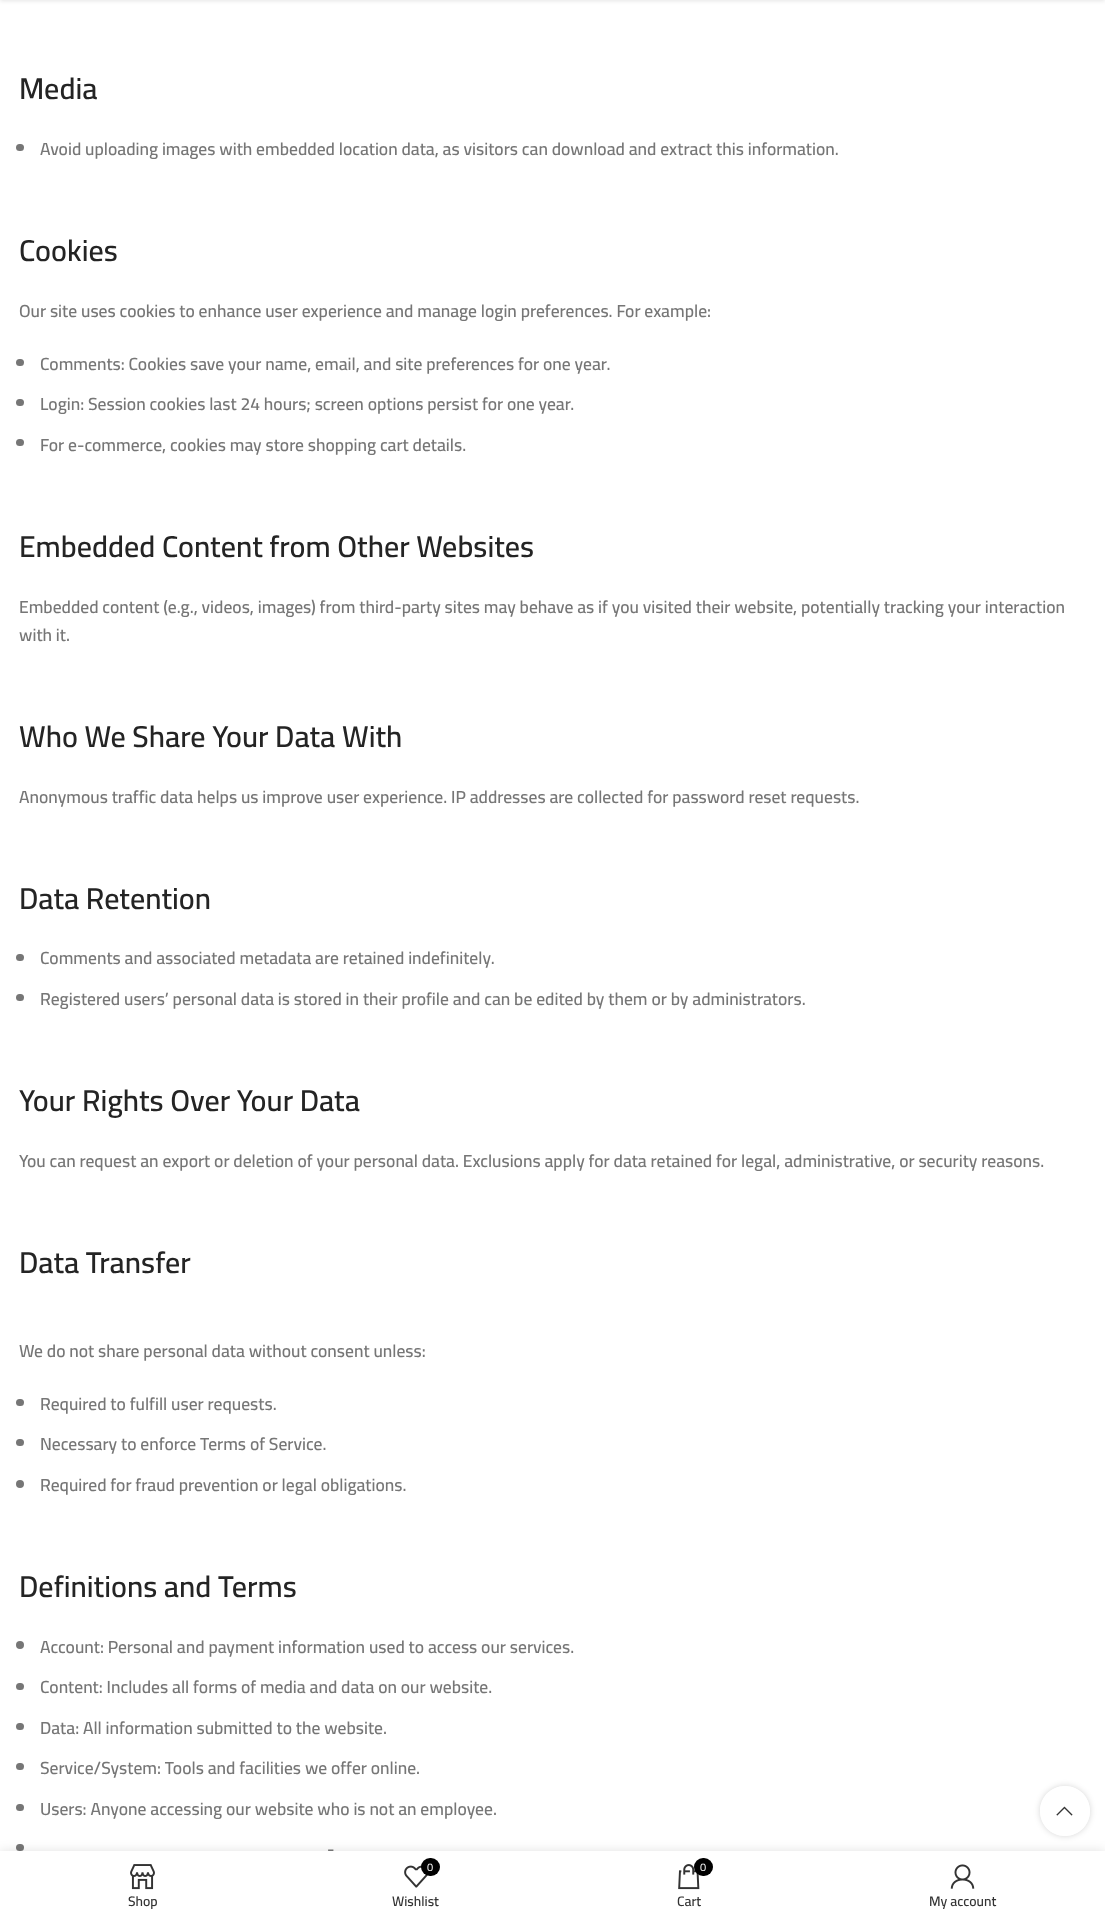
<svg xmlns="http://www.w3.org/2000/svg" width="1105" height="1920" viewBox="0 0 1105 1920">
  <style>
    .t1 { font: 600 30px Cairo; fill: #242424; }
    .t2 { font: 600 17.5px Cairo; fill: #767676; }
    .t3 { font: 600 13.75px Cairo; fill: #333; }
    .t4 { font: 11px Cairo; fill: #fff; }
  </style>
  <defs>
    <clipPath id="clip1"><path d="M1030 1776H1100V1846H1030ZM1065 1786C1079 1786 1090 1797 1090 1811C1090 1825 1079 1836 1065 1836C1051 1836 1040 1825 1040 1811C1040 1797 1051 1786 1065 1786Z" clip-rule="evenodd"/></clipPath>
  </defs>
  <rect width="100%" height="100%" fill="#fff"/>
  <rect x="0" y="-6" width="1105" height="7" fill="#0000001a" filter="blur(2px)"/>
  <text x="19" y="99" class="t1">Media</text>
  <rect x="16" y="144" width="8" height="7" rx="3.5" fill="#767676"/>
  <text x="40" y="155" class="t2">Avoid uploading images with embedded location data, as visitors can download and extract this information.</text>
  <text x="19" y="261" class="t1">Cookies</text>
  <text x="19" y="317" class="t2">Our site uses cookies to enhance user experience and manage login preferences. For example:</text>
  <rect x="16" y="359" width="8" height="7" rx="3.5" fill="#767676"/>
  <text x="40" y="370" class="t2">Comments: Cookies save your name, email, and site preferences for one year.</text>
  <rect x="16" y="399" width="8" height="7" rx="3.5" fill="#767676"/>
  <text x="40" y="410" class="t2">Login: Session cookies last 24 hours; screen options persist for one year.</text>
  <rect x="16" y="439" width="8" height="7" rx="3.5" fill="#767676"/>
  <text x="40" y="451" class="t2">For e-commerce, cookies may store shopping cart details.</text>
  <text x="19" y="557" class="t1">Embedded Content from Other Websites</text>
  <text x="19" y="613" class="t2">Embedded content (e.g., videos, images) from third-party sites may behave as if you visited their website, potentially tracking your interaction</text>
  <text x="19" y="641" class="t2">with it.</text>
  <text x="19" y="747" class="t1">Who We Share Your Data With</text>
  <text x="19" y="803" class="t2">Anonymous traffic data helps us improve user experience. IP addresses are collected for password reset requests.</text>
  <text x="19" y="909" class="t1">Data Retention</text>
  <rect x="16" y="954" width="8" height="7" rx="3.5" fill="#767676"/>
  <text x="40" y="964" class="t2">Comments and associated metadata are retained indefinitely.</text>
  <rect x="16" y="994" width="8" height="7" rx="3.5" fill="#767676"/>
  <text x="40" y="1005" class="t2">Registered users’ personal data is stored in their profile and can be edited by them or by administrators.</text>
  <text x="19" y="1111" class="t1">Your Rights Over Your Data</text>
  <text x="19" y="1167" class="t2">You can request an export or deletion of your personal data. Exclusions apply for data retained for legal, administrative, or security reasons.</text>
  <text x="19" y="1273" class="t1">Data Transfer</text>
  <text x="19" y="1357" class="t2">We do not share personal data without consent unless:</text>
  <rect x="16" y="1399" width="8" height="7" rx="3.5" fill="#767676"/>
  <text x="40" y="1410" class="t2">Required to fulfill user requests.</text>
  <rect x="16" y="1439" width="8" height="7" rx="3.5" fill="#767676"/>
  <text x="40" y="1450" class="t2">Necessary to enforce Terms of Service.</text>
  <circle cx="20" cy="1484" r="4" fill="#767676"/>
  <text x="40" y="1491" class="t2">Required for fraud prevention or legal obligations.</text>
  <text x="19" y="1597" class="t1">Definitions and Terms</text>
  <circle cx="20" cy="1645" r="4" fill="#767676"/>
  <text x="40" y="1653" class="t2">Account: Personal and payment information used to access our services.</text>
  <rect x="16" y="1683" width="8" height="7" rx="3.5" fill="#767676"/>
  <text x="40" y="1693" class="t2">Content: Includes all forms of media and data on our website.</text>
  <rect x="16" y="1723" width="8" height="7" rx="3.5" fill="#767676"/>
  <text x="40" y="1734" class="t2">Data: All information submitted to the website.</text>
  <rect x="16" y="1763" width="8" height="7" rx="3.5" fill="#767676"/>
  <text x="40" y="1774" class="t2">Service/System: Tools and facilities we offer online.</text>
  <rect x="16" y="1804" width="8" height="7" rx="3.5" fill="#767676"/>
  <text x="40" y="1815" class="t2">Users: Anyone accessing our website who is not an employee.</text>
  <rect x="16" y="1844" width="8" height="7" rx="3.5" fill="#767676"/>
  <text x="327" y="1855" class="t2">-</text>
  <g clip-path="url(#clip1)">
    <rect x="1040" y="1786" width="50" height="50" rx="25" fill="#0000002b" filter="blur(3px)"/>
  </g>
  <circle cx="1065" cy="1811" r="25" fill="#ffffffe6"/>
  <image x="1056" y="1806" width="17" height="10" href="images/1.png"/>
  <rect x="0" y="1851" width="1105" height="69" fill="#0000001f" filter="blur(5.5px)"/>
  <rect x="0" y="1851" width="1105" height="69" fill="#fff"/>
  <image x="130" y="1864" width="25" height="26" href="images/2.png"/>
  <text x="128" y="1906" class="t3">Shop</text>
  <image x="404" y="1865" width="24" height="23" href="images/3.png"/>
  <rect x="421" y="1858" width="19" height="18" rx="9" fill="#010101"/>
  <text x="427" y="1871" class="t4">0</text>
  <text x="392" y="1906" class="t3">Wishlist</text>
  <image x="678" y="1864" width="22" height="26" href="images/4.png"/>
  <rect x="694" y="1858" width="19" height="18" rx="9" fill="#010101"/>
  <text x="700" y="1871" class="t4">0</text>
  <text x="677" y="1906" class="t3">Cart</text>
  <image x="950" y="1864" width="25" height="25" href="images/5.png"/>
  <text x="929" y="1906" class="t3">My account</text>
</svg>
